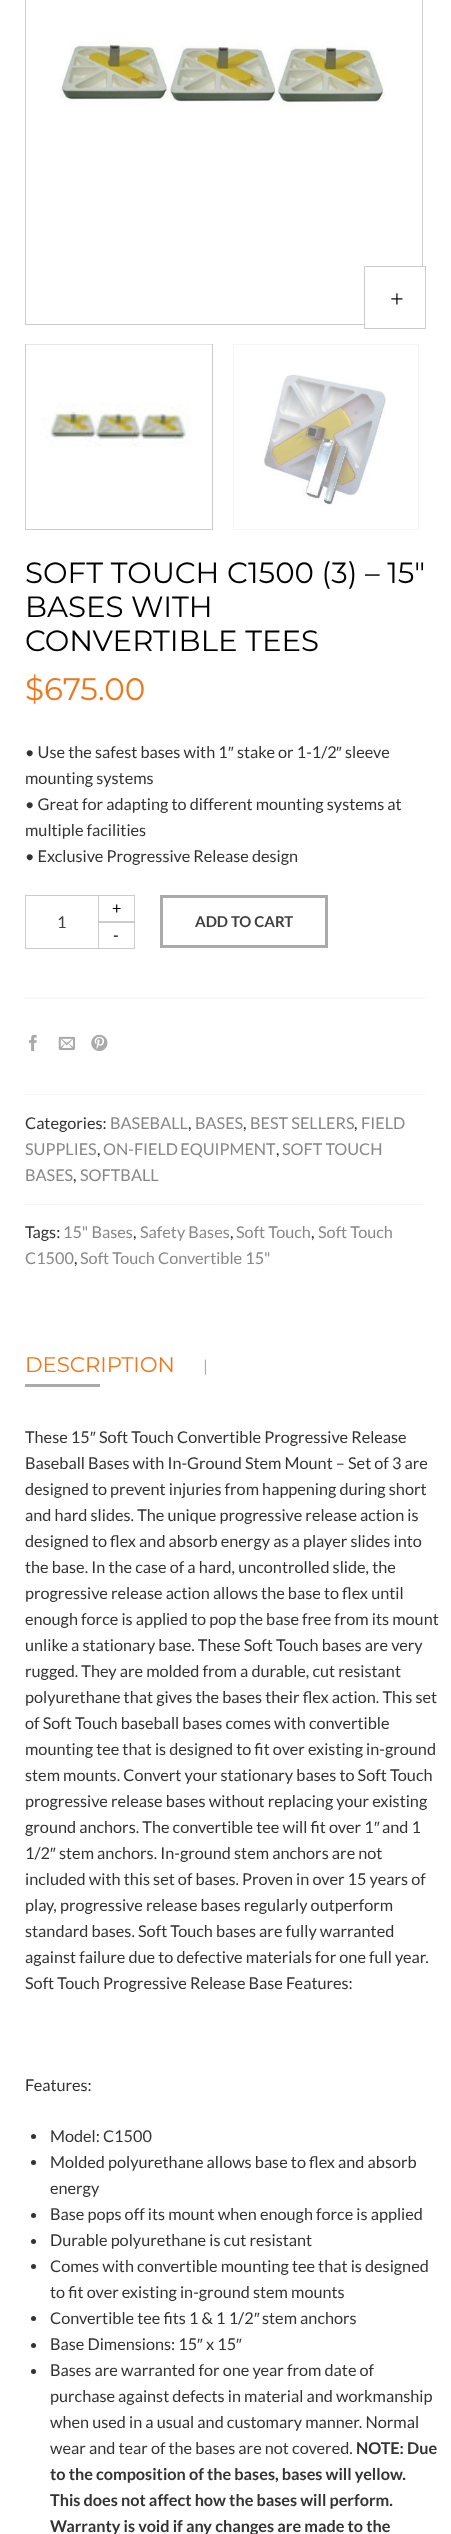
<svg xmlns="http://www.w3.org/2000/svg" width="451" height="2534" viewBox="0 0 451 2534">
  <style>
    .t1 { font: 29.25px Montserrat; fill: #000; }
    .t2 { font: 31px Montserrat; fill: #ef761a; }
    .t3 { font: 16.25px Lato; fill: #333; }
    .t4 { font: 16.25px Liberation Sans; fill: #333; }
    .t5 { font: 16.25px Lato; fill: #000; }
    .t6 { font: 16.25px Lato; fill: #404040; }
    .t7 { font: bold 15px Lato; fill: #404040; }
    .t8 { font: 16.25px Lato; fill: #888; }
    .t9 { font: 21.25px Montserrat; fill: #ef761a; }
    .t10 { font: 16.25px Lato; fill: #aaa; }
    .t11 { font: bold 16.25px Lato; fill: #333; }
  </style>
  <rect width="100%" height="100%" fill="#fff"/>
  <rect x="25.5" y="-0.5" width="397" height="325" fill="none" stroke="#ccc"/>
  <image x="59" y="41" width="327" height="66" href="images/1.png"/>
  <rect x="365" y="267" width="58" height="58" fill="#fff"/>
  <image x="391" y="293" width="12" height="12" href="images/2.png"/>
  <rect x="364.5" y="266.5" width="61" height="62" fill="none" stroke="#ccc"/>
  <rect x="25.5" y="344.5" width="187" height="185" fill="none" stroke="#ccc"/>
  <image x="26" y="344" width="186" height="103" href="images/3.png"/>
  <rect x="233.5" y="344.5" width="185" height="185" fill="none" stroke="#f5f5f5"/>
  <image x="263" y="374" width="123" height="132" href="images/4.png"/>
  <text x="25" y="583" class="t1">SOFT TOUCH C1500 (3) – 15″</text>
  <text x="25" y="617" class="t1">BASES WITH</text>
  <text x="25" y="651" class="t1">CONVERTIBLE TEES</text>
  <text x="25" y="700" class="t2">$675.00</text>
  <text x="25" y="758" class="t3">• Use the safest bases with 1</text>
  <text x="228" y="758" class="t4">″</text>
  <text x="237" y="758" class="t3">stake or 1-1/2</text>
  <text x="336" y="758" class="t4">″</text>
  <text x="345" y="758" class="t3">sleeve</text>
  <text x="25" y="784" class="t3">mounting systems</text>
  <text x="25" y="810" class="t3">• Great for adapting to different mounting systems at</text>
  <text x="25" y="836" class="t3">multiple facilities</text>
  <text x="25" y="862" class="t3">• Exclusive Progressive Release design</text>
  <rect x="25.5" y="895.5" width="73" height="53" fill="none" stroke="#ccc"/>
  <rect x="98.5" y="895.5" width="36" height="27" fill="none" stroke="#ccc"/>
  <text x="112" y="914" class="t5">+</text>
  <text x="57" y="928" class="t6">1</text>
  <rect x="98.5" y="921.5" width="36" height="27" fill="none" stroke="#ccc"/>
  <text x="113" y="941" class="t5">-</text>
  <rect x="161.5" y="896.5" width="165" height="50" fill="none" stroke="#aaa" stroke-width="3"/>
  <text x="195" y="927" class="t7">ADD TO CART</text>
  <path d="M25 998H426" fill="none" stroke="#ececec" stroke-width="1.2" stroke-dasharray="1.25 1.25"/>
  <image x="29" y="1034" width="8" height="18" href="images/5.png"/>
  <image x="58" y="1036" width="17" height="15" href="images/6.png"/>
  <image x="91" y="1034" width="17" height="18" href="images/7.png"/>
  <path d="M25 1094.5H426" fill="none" stroke="#ececec" stroke-width="1.2" stroke-dasharray="1.25 1.25"/>
  <text x="25" y="1129" class="t3">Categories:</text>
  <text x="110" y="1129" class="t8">BASEBALL</text>
  <text x="195" y="1129" class="t8">BASES</text>
  <text x="250" y="1129" class="t8">BEST SELLERS</text>
  <text x="361" y="1129" class="t8">FIELD</text>
  <text x="188" y="1129" class="t3">,</text>
  <text x="243" y="1129" class="t3">,</text>
  <text x="354" y="1129" class="t3">,</text>
  <text x="25" y="1155" class="t8">SUPPLIES</text>
  <text x="97" y="1155" class="t3">,</text>
  <text x="103" y="1155" word-spacing="-1" class="t8">ON-FIELD EQUIPMENT</text>
  <text x="276" y="1155" class="t3">,</text>
  <text x="282" y="1155" class="t8">SOFT TOUCH</text>
  <text x="25" y="1181" class="t8">BASES</text>
  <text x="73" y="1181" class="t3">,</text>
  <text x="80" y="1181" class="t8">SOFTBALL</text>
  <path d="M25 1204.5H426" fill="none" stroke="#ececec" stroke-width="1.2" stroke-dasharray="1.25 1.25"/>
  <text x="25" y="1238" class="t3">Tags:</text>
  <text x="63" y="1238" class="t8">15" Bases</text>
  <text x="133" y="1238" class="t3">,</text>
  <text x="140" y="1238" class="t8">Safety Bases</text>
  <text x="230" y="1238" class="t3">,</text>
  <text x="236" y="1238" class="t8">Soft Touch</text>
  <text x="311" y="1238" class="t3">,</text>
  <text x="318" y="1238" class="t8">Soft Touch</text>
  <text x="25" y="1264" class="t8">C1500</text>
  <text x="74" y="1264" class="t3">,</text>
  <text x="80" y="1264" class="t8">Soft Touch Convertible 15"</text>
  <text x="25" y="1372" class="t9">DESCRIPTION</text>
  <rect x="25" y="1384" width="75" height="3" fill="#aaa"/>
  <text x="203" y="1372" class="t10">|</text>
  <text x="25" y="1443" class="t3">These 15</text>
  <text x="90" y="1443" class="t4">″</text>
  <text x="99" y="1443" class="t3">Soft Touch Convertible Progressive Release</text>
  <text x="25" y="1469" class="t3">Baseball Bases with In-Ground Stem Mount – Set of 3 are</text>
  <text x="25" y="1495" class="t3">designed to prevent injuries from happening during short</text>
  <text x="25" y="1521" class="t3">and hard slides. The unique progressive release action is</text>
  <text x="25" y="1547" class="t3">designed to flex and absorb energy as a player slides into</text>
  <text x="25" y="1573" class="t3">the base. In the case of a hard, uncontrolled slide, the</text>
  <text x="25" y="1599" class="t3">progressive release action allows the base to flex until</text>
  <text x="25" y="1625" class="t3">enough force is applied to pop the base free from its mount</text>
  <text x="25" y="1651" class="t3">unlike a stationary base. These Soft Touch bases are very</text>
  <text x="25" y="1677" class="t3">rugged. They are molded from a durable, cut resistant</text>
  <text x="25" y="1703" class="t3">polyurethane that gives the bases their flex action. This set</text>
  <text x="25" y="1729" class="t3">of Soft Touch baseball bases comes with convertible</text>
  <text x="25" y="1755" class="t3">mounting tee that is designed to fit over existing in-ground</text>
  <text x="25" y="1781" class="t3">stem mounts. Convert your stationary bases to Soft Touch</text>
  <text x="25" y="1807" class="t3">progressive release bases without replacing your existing</text>
  <text x="25" y="1833" class="t3">ground anchors. The convertible tee will fit over 1</text>
  <text x="374" y="1833" class="t4">″</text>
  <text x="382" y="1833" class="t3">and 1</text>
  <text x="25" y="1859" class="t3">1/2</text>
  <text x="50" y="1859" class="t4">″</text>
  <text x="59" y="1859" class="t3">stem anchors. In-ground stem anchors are not</text>
  <text x="25" y="1885" class="t3">included with this set of bases. Proven in over 15 years of</text>
  <text x="25" y="1911" class="t3">play, progressive release bases regularly outperform</text>
  <text x="25" y="1937" class="t3">standard bases. Soft Touch bases are fully warranted</text>
  <text x="25" y="1963" class="t3">against failure due to defective materials for one full year.</text>
  <text x="25" y="1989" class="t3">Soft Touch Progressive Release Base Features:</text>
  <text x="25" y="2091" class="t3">Features:</text>
  <circle cx="33.5" cy="2136.5" r="2.5" fill="#333"/>
  <text x="50" y="2142" class="t3">Model: C1500</text>
  <circle cx="33.5" cy="2162.5" r="2.5" fill="#333"/>
  <text x="50" y="2168" class="t3">Molded polyurethane allows base to flex and absorb</text>
  <text x="50" y="2194" class="t3">energy</text>
  <circle cx="33.5" cy="2215.5" r="2.5" fill="#333"/>
  <text x="50" y="2220" class="t3">Base pops off its mount when enough force is applied</text>
  <circle cx="33.5" cy="2241.5" r="2.5" fill="#333"/>
  <text x="50" y="2246" class="t3">Durable polyurethane is cut resistant</text>
  <circle cx="33.5" cy="2266.5" r="2.5" fill="#333"/>
  <text x="50" y="2272" class="t3">Comes with convertible mounting tee that is designed</text>
  <text x="50" y="2298" class="t3">to fit over existing in-ground stem mounts</text>
  <circle cx="33.5" cy="2318.5" r="2.5" fill="#333"/>
  <text x="50" y="2324" class="t3">Convertible tee fits 1 &amp; 1 1/2</text>
  <text x="254" y="2324" class="t4">″</text>
  <text x="262" y="2324" class="t3">stem anchors</text>
  <text x="50" y="2350" class="t3">Base Dimensions: 15</text>
  <text x="197" y="2350" class="t4">″</text>
  <text x="206" y="2350" class="t3">x 15</text>
  <text x="236" y="2350" class="t4">″</text>
  <circle cx="33.5" cy="2345.5" r="2.5" fill="#333"/>
  <circle cx="33.5" cy="2371.5" r="2.5" fill="#333"/>
  <text x="50" y="2376" class="t3">Bases are warranted for one year from date of</text>
  <text x="50" y="2402" class="t3">purchase against defects in material and workmanship</text>
  <text x="50" y="2428" class="t3">when used in a usual and customary manner. Normal</text>
  <text x="50" y="2454" class="t3">wear and tear of the bases are not covered.</text>
  <text x="356" y="2454" class="t11">NOTE: Due</text>
  <text x="50" y="2480" class="t11">to the composition of the bases, bases will yellow.</text>
  <text x="50" y="2506" class="t11">This does not affect how the bases will perform.</text>
  <text x="50" y="2532" class="t11">Warranty is void if any changes are made to the</text>
</svg>
